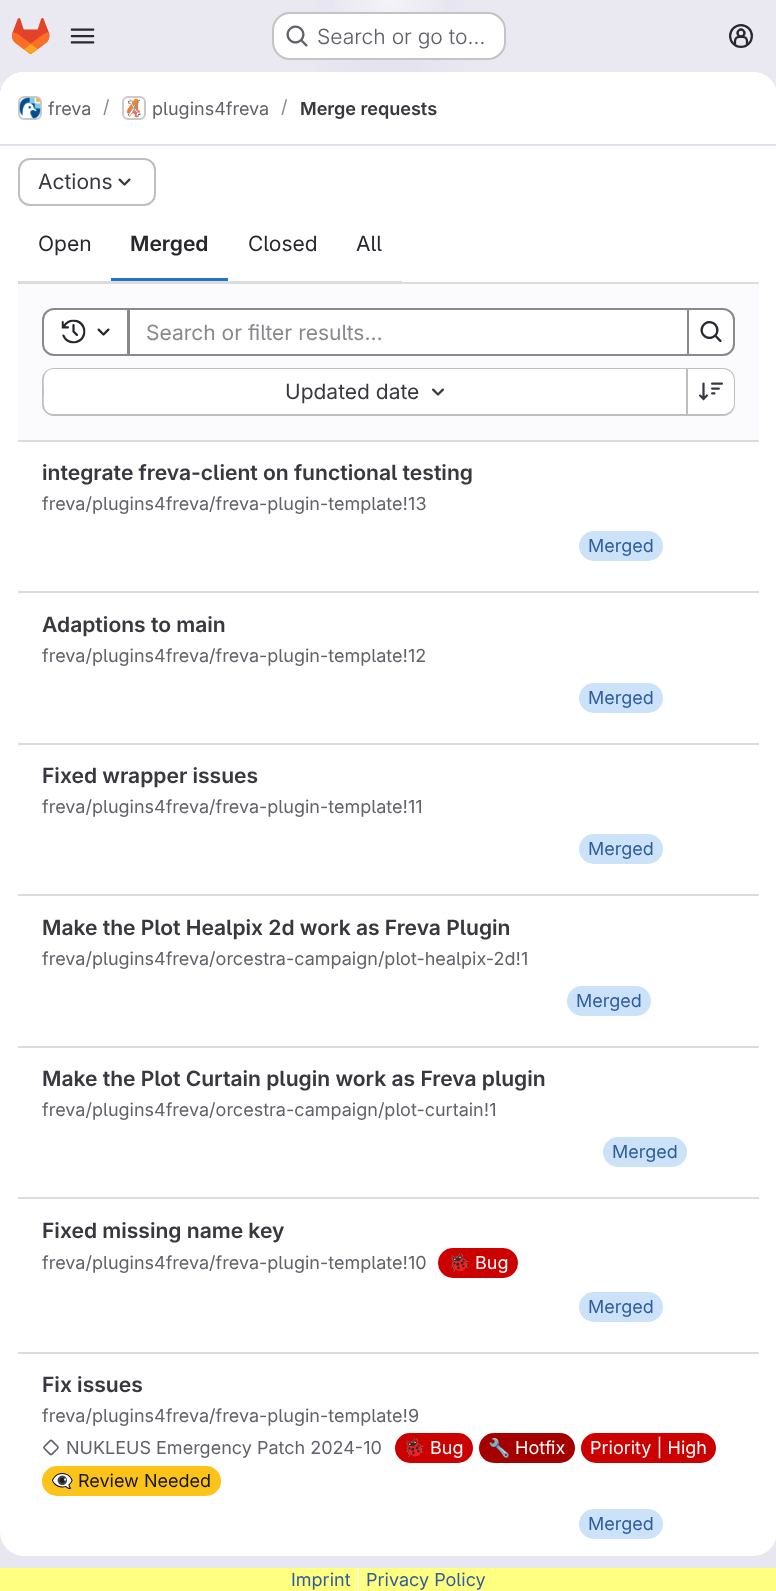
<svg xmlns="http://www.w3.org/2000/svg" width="776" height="1591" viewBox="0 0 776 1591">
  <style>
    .t1 { font: 300 21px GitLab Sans; fill: #626168; }
    .t2 { font: 18px GitLab Sans; fill: #626168; }
    .t3 { font: 18px GitLab Sans; fill: #89888d; }
    .t4 { font: 600 18px GitLab Sans; fill: #3a383f; }
    .t5 { font: 21px GitLab Sans; fill: #3a383f; }
    .t6 { font: 21px GitLab Sans; fill: #28272d; }
    .t7 { font: 600 21px GitLab Sans; fill: #28272d; }
    .t8 { font: 21px GitLab Sans; fill: #89888d; }
    .t9 { font: 600 21px GitLab Sans; fill: #3a383f; }
    .t10 { font: 18px GitLab Sans; fill: #2f5ca0; }
    .t11 { font: 18px Noto Color Emoji; fill: #fff; }
    .t12 { font: 18px GitLab Sans; fill: #fff; }
    .t13 { font: 18px Noto Color Emoji; fill: #18171d; }
    .t14 { font: 18px GitLab Sans; fill: #18171d; }
  </style>
  <defs>
    <linearGradient id="g1" gradientUnits="userSpaceOnUse" x1="536" y1="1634" x2="241" y2="-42"><stop offset="0" stop-color="#e8e6f0"/><stop offset="0.7" stop-color="#eae9f2"/></linearGradient>
    <radialGradient id="g2" gradientUnits="userSpaceOnUse" cx="0" cy="0" r="1" gradientTransform="matrix(389 0 0 1592 389 0)"><stop offset="0" stop-color="#e4e2ed"/><stop offset="0.27" stop-color="#e4e2ed" stop-opacity="0"/></radialGradient>
    <radialGradient id="g3" gradientUnits="userSpaceOnUse" cx="0" cy="0" r="1" gradientTransform="matrix(389 0 0 1592 389 0)"><stop offset="0" stop-color="#e4e2ec"/><stop offset="0.19" stop-color="#e4e2ec" stop-opacity="0"/></radialGradient>
    <radialGradient id="g4" gradientUnits="userSpaceOnUse" cx="389" cy="0" r="1638"><stop offset="0" stop-color="#fff" stop-opacity="0.6"/><stop offset="0.04" stop-color="#fff" stop-opacity="0"/></radialGradient>
  </defs>
  <rect width="100%" height="100%" fill="#fff"/>
  <rect x="0" y="0" width="776" height="1568" fill="url(#g1)"/>
  <rect x="313" y="0" width="152" height="72" fill="url(#g2)"/>
  <rect x="359" y="23" width="60" height="48" fill="url(#g3)"/>
  <rect x="334" y="0" width="110" height="56" fill="url(#g4)"/>
  <image x="12" y="18" width="38" height="36" href="images/1.png"/>
  <image x="70" y="28" width="25" height="16" href="images/2.png"/>
  <rect x="272" y="12" width="234" height="48" rx="18" fill="#fff"/>
  <rect x="273" y="13" width="232" height="46" rx="17" fill="none" stroke="#0505063d" stroke-width="2"/>
  <image x="286" y="25" width="22" height="22" href="images/3.png"/>
  <text x="317" y="44" class="t1">Search or go to…</text>
  <image x="729" y="24" width="24" height="24" href="images/4.png"/>
  <rect x="0" y="72" width="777" height="1484" rx="24" fill="#fff"/>
  <path d="M24 72H753C766.5 72 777 82.5 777 96V146H0V96C0 82.5 10.5 72 24 72Z" fill="#fff"/>
  <rect x="0" y="144" width="776" height="2" fill="#e1dfec"/>
  <rect x="19" y="97" width="22" height="22" rx="5" fill="none" stroke="#dcdcde" stroke-width="2"/>
  <image x="19" y="97" width="22" height="22" href="images/5.png"/>
  <rect x="19" y="97" width="22" height="22" rx="5" fill="none" stroke="#05050614" stroke-width="2"/>
  <text x="48" y="115" class="t2">freva</text>
  <text x="103" y="113" class="t3">/</text>
  <rect x="123" y="97" width="22" height="22" rx="5" fill="none" stroke="#dcdcde" stroke-width="2"/>
  <image x="126" y="98" width="15" height="20" href="images/6.png"/>
  <rect x="123" y="97" width="22" height="22" rx="5" fill="none" stroke="#05050614" stroke-width="2"/>
  <text x="152" y="115" class="t2">plugins4freva</text>
  <text x="281" y="113" class="t3">/</text>
  <text x="300" y="115" class="t4">Merge requests</text>
  <rect x="18" y="282" width="741" height="2" fill="#dcdcde"/>
  <rect x="19" y="159" width="136" height="46" rx="11" fill="none" stroke="#bfbfc3" stroke-width="2"/>
  <text x="38" y="189" class="t5">Actions</text>
  <image x="118" y="178" width="13" height="8" href="images/7.png"/>
  <rect x="18" y="281" width="384" height="1" fill="#dcdcde"/>
  <text x="38" y="251" class="t6">Open</text>
  <text x="130" y="251" class="t7">Merged</text>
  <rect x="111" y="278" width="117" height="3" fill="#1f75cb"/>
  <text x="248" y="251" class="t6">Closed</text>
  <text x="356" y="251" class="t6">All</text>
  <rect x="18" y="284" width="741" height="156" fill="#fbfafd"/>
  <rect x="18" y="440" width="741" height="2" fill="#dcdcde"/>
  <rect x="129" y="309" width="559" height="46" fill="#fff" stroke="#89888d" stroke-width="2"/>
  <path d="M54 309H128V355H54C48 355 43 350 43 344V320C43 314 48 309 54 309Z" fill="#fff" stroke="#89888d" stroke-width="2"/>
  <image x="61" y="319" width="25" height="25" href="images/8.png"/>
  <image x="97" y="328" width="13" height="8" href="images/9.png"/>
  <text x="146" y="340" class="t8">Search or filter results…</text>
  <path d="M688 309H723C729 309 734 314 734 320V344C734 350 729 355 723 355H688Z" fill="#fff" stroke="#89888d" stroke-width="2"/>
  <image x="700" y="321" width="22" height="21" href="images/10.png"/>
  <path d="M55 369H686V414H55C49 414 44 409 44 403V380C44 374 49 369 55 369Z" fill="#fff"/>
  <path d="M54 368H686V416H54C47 416 42 410 42 404V380C42 373 47 368 54 368ZM54 369H686V414H54C41 414 44 400 44 392C44 383 41 369 54 369Z" fill="#bfbfc3" fill-rule="evenodd"/>
  <text x="285" y="399" class="t5">Updated date</text>
  <image x="432" y="388" width="12" height="8" href="images/11.png"/>
  <path d="M687 369H723C729 369 734 374 734 380V403C734 409 729 414 723 414H687Z" fill="#fff"/>
  <path d="M687 368H723C730 368 735 373 735 380V404C735 410 730 416 723 416H687ZM687 369H723C729 369 734 374 734 380V404C734 409 729 414 723 414H687Z" fill="#bfbfc3" fill-rule="evenodd"/>
  <rect x="686" y="368" width="2" height="48" fill="#bfbfc3"/>
  <image x="699" y="382" width="24" height="19" href="images/12.png"/>
  <rect x="18" y="591" width="741" height="2" fill="#dcdcde"/>
  <text x="42" y="480" class="t9">integrate freva-client on functional testing</text>
  <text x="42" y="510" class="t2">freva/plugins4freva/freva-plugin-template!13</text>
  <rect x="579" y="531" width="84" height="30" rx="15" fill="#cbe2f9"/>
  <text x="588" y="552" class="t10">Merged</text>
  <rect x="18" y="743" width="741" height="2" fill="#dcdcde"/>
  <text x="42" y="632" class="t9">Adaptions to main</text>
  <text x="42" y="662" class="t2">freva/plugins4freva/freva-plugin-template!12</text>
  <rect x="579" y="683" width="84" height="30" rx="15" fill="#cbe2f9"/>
  <text x="588" y="704" class="t10">Merged</text>
  <rect x="18" y="894" width="741" height="2" fill="#dcdcde"/>
  <text x="42" y="783" class="t9">Fixed wrapper issues</text>
  <text x="42" y="813" class="t2">freva/plugins4freva/freva-plugin-template!11</text>
  <rect x="579" y="834" width="84" height="30" rx="15" fill="#cbe2f9"/>
  <text x="588" y="855" class="t10">Merged</text>
  <rect x="18" y="1046" width="741" height="2" fill="#dcdcde"/>
  <text x="42" y="935" class="t9">Make the Plot Healpix 2d work as Freva Plugin</text>
  <text x="42" y="965" class="t2">freva/plugins4freva/orcestra-campaign/plot-healpix-2d!1</text>
  <rect x="567" y="986" width="84" height="30" rx="15" fill="#cbe2f9"/>
  <text x="576" y="1007" class="t10">Merged</text>
  <rect x="18" y="1197" width="741" height="2" fill="#dcdcde"/>
  <text x="42" y="1086" class="t9">Make the Plot Curtain plugin work as Freva plugin</text>
  <text x="42" y="1116" class="t2">freva/plugins4freva/orcestra-campaign/plot-curtain!1</text>
  <rect x="603" y="1137" width="84" height="30" rx="15" fill="#cbe2f9"/>
  <text x="612" y="1158" class="t10">Merged</text>
  <rect x="18" y="1352" width="741" height="2" fill="#dcdcde"/>
  <text x="42" y="1238" class="t9">Fixed missing name key</text>
  <text x="42" y="1269" class="t2">freva/plugins4freva/freva-plugin-template!10</text>
  <rect x="439.5" y="1249.5" width="77" height="27" rx="13.5" fill="#c00" stroke="#c00" stroke-width="3"/>
  <text x="448" y="1269" class="t11">🐞</text>
  <text x="475" y="1269" class="t12">Bug</text>
  <rect x="579" y="1292" width="84" height="30" rx="15" fill="#cbe2f9"/>
  <text x="588" y="1313" class="t10">Merged</text>
  <text x="42" y="1392" class="t9">Fix issues</text>
  <text x="42" y="1422" class="t2">freva/plugins4freva/freva-plugin-template!9</text>
  <image x="43" y="1439" width="16" height="17" href="images/13.png"/>
  <text x="66" y="1454" class="t2">NUKLEUS Emergency Patch 2024-10</text>
  <rect x="396.5" y="1434.5" width="75" height="27" rx="13.5" fill="#c00" stroke="#c00" stroke-width="3"/>
  <text x="403" y="1454" class="t11">🐞</text>
  <text x="430" y="1454" class="t12">Bug</text>
  <rect x="480.5" y="1434.5" width="93" height="27" rx="13.5" fill="#a40000" stroke="#a40000" stroke-width="3"/>
  <text x="488" y="1454" class="t11">🔧</text>
  <text x="515" y="1454" class="t12">Hotfix</text>
  <rect x="582.5" y="1434.5" width="132" height="27" rx="13.5" fill="#c00" stroke="#c00" stroke-width="3"/>
  <text x="590" y="1454" class="t12">Priority | High</text>
  <rect x="43.5" y="1467.5" width="176" height="27" rx="13.5" fill="#fcc419" stroke="#fcc419" stroke-width="3"/>
  <text x="51" y="1487" class="t13">👁️‍🗨️</text>
  <text x="78" y="1487" class="t14">Review Needed</text>
  <rect x="579" y="1509" width="84" height="30" rx="15" fill="#cbe2f9"/>
  <text x="588" y="1530" class="t10">Merged</text>
  <rect x="0" y="1568" width="776" height="23" fill="#ffff80"/>
  <text x="291" y="1586" class="t10">Imprint</text>
  <text x="355" y="1586" class="t12">|</text>
  <text x="366" y="1586" class="t10">Privacy Policy</text>
</svg>
